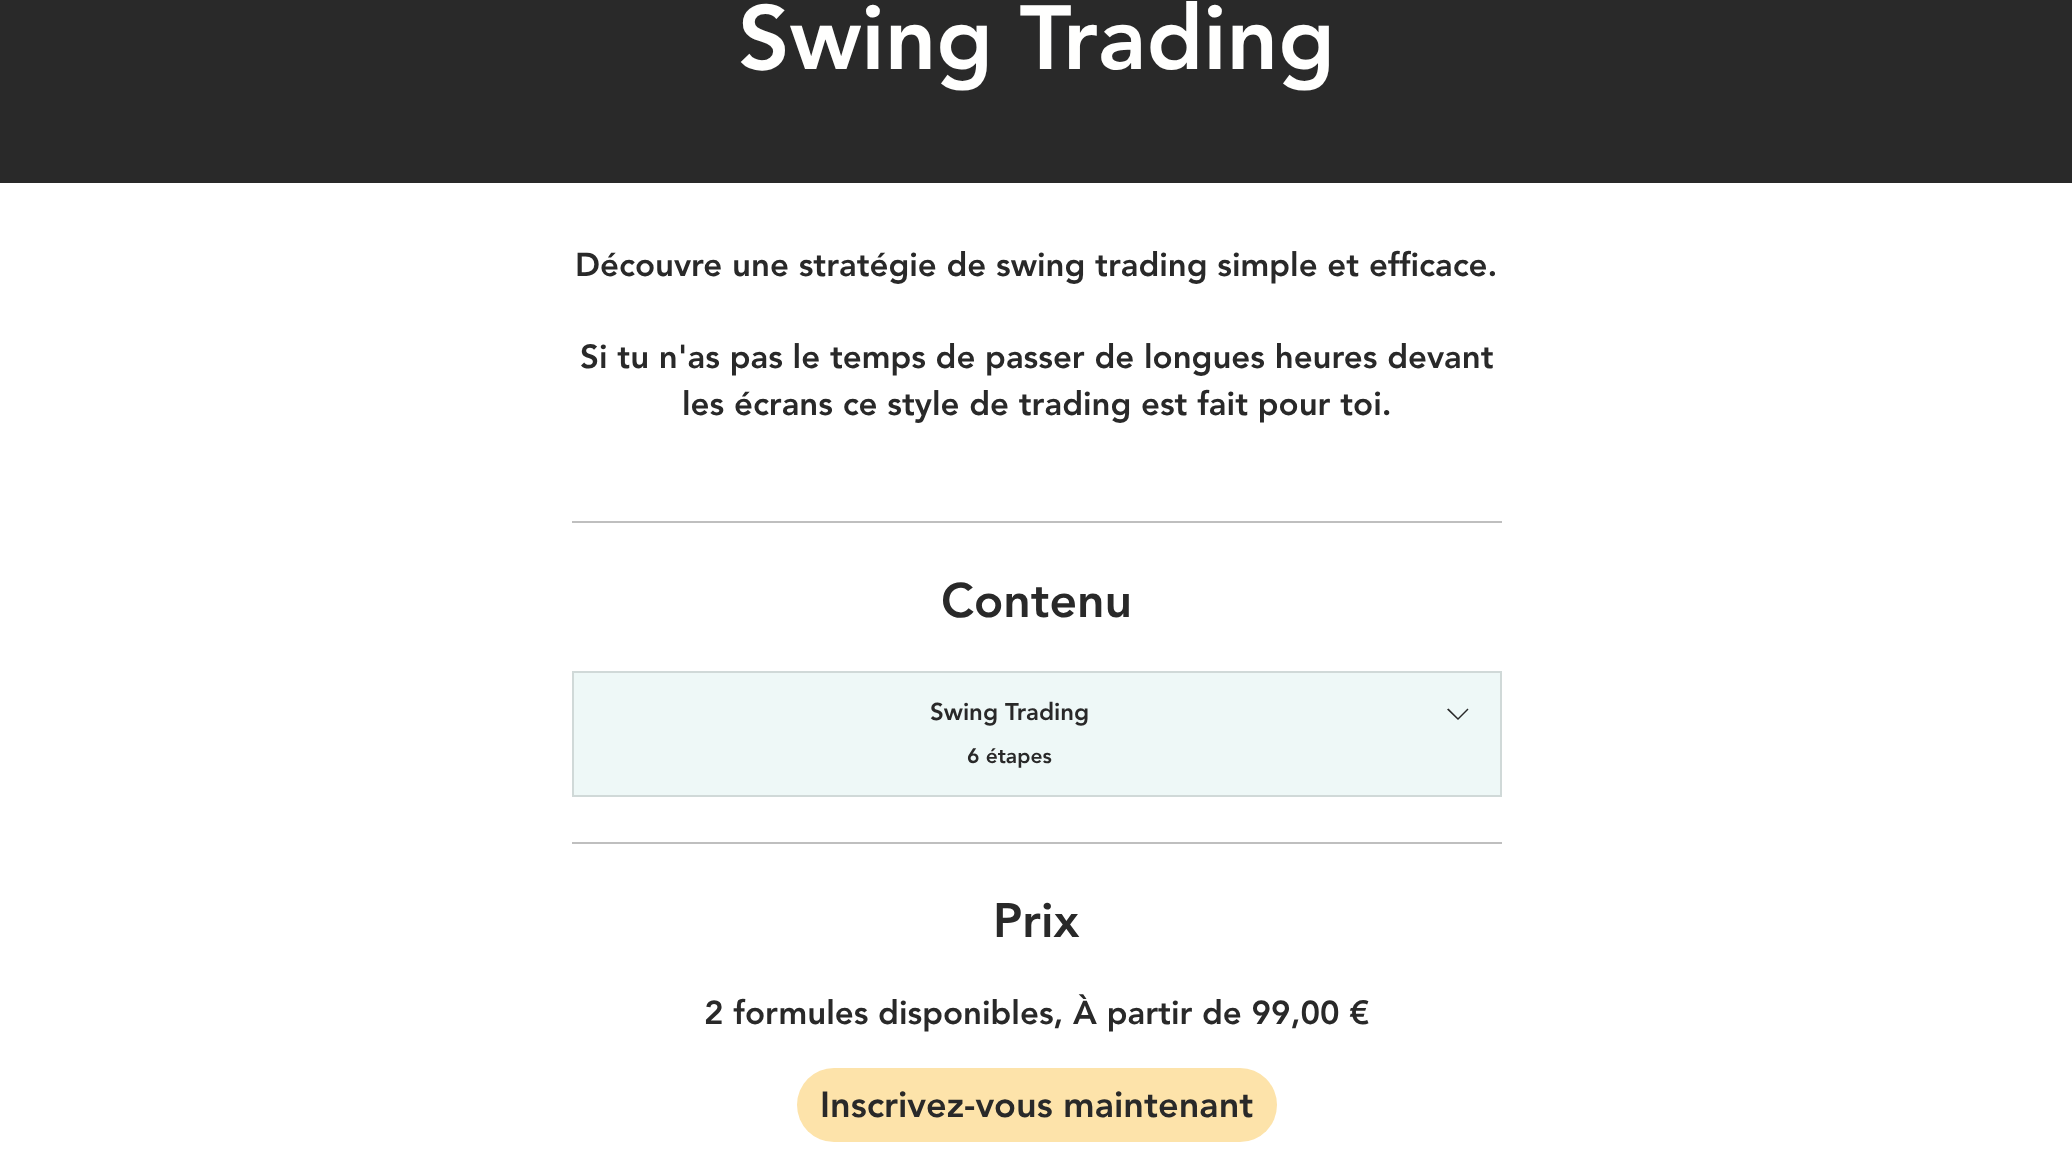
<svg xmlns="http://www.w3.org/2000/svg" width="2072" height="1170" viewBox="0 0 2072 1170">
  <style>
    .t1 { font: 900 90px 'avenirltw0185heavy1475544'; fill: #fffffe; }
    .t2 { font: 900 33px 'avenirltw0185heavy1475544'; fill: #292929; }
    .t3 { font: 900 48px 'avenirltw0185heavy1475544'; fill: #292929; }
    .t4 { font: 900 24px 'avenirltw0185heavy1475544'; fill: #292929; }
    .t5 { font: 900 21px 'avenirltw0185heavy1475544'; fill: #292929; }
    .t6 { font: 900 36px 'avenirltw0185heavy1475544'; fill: #292929; }
  </style>
  <rect width="100%" height="100%" fill="#fff"/>
  <rect x="0" y="0" width="2072" height="183" fill="#292929"/>
  <text x="738" y="69" class="t1">Swing Trading</text>
  <rect x="572" y="521" width="930" height="2" fill="#bfbfbf"/>
  <text x="575" y="276" class="t2">Découvre une stratégie de swing trading simple et efficace.</text>
  <text x="580" y="368" class="t2">Si tu n'as pas le temps de passer de longues heures devant</text>
  <text x="682" y="415" class="t2">les écrans ce style de trading est fait pour toi.</text>
  <rect x="572" y="842" width="930" height="2" fill="#bfbfbf"/>
  <text x="941" y="617" class="t3">Contenu</text>
  <rect x="573" y="672" width="928" height="124" fill="#eef8f7" stroke="#d0d9d8" stroke-width="2"/>
  <text x="930" y="720" class="t4">Swing Trading</text>
  <text x="967" y="763" class="t5">6 étapes</text>
  <path d="M1467.5 708.5L1468.5 709.5L1458 720L1447 709.5L1448.5 708.5L1458 718Z" fill="#292929" fill-rule="evenodd"/>
  <text x="993" y="937" class="t3">Prix</text>
  <text x="704" y="1024" class="t2">2 formules disponibles, À partir de 99,00 €</text>
  <rect x="797" y="1068" width="480" height="74" rx="37" fill="#fde3aa"/>
  <text x="820" y="1117" class="t6">Inscrivez-vous maintenant</text>
</svg>
